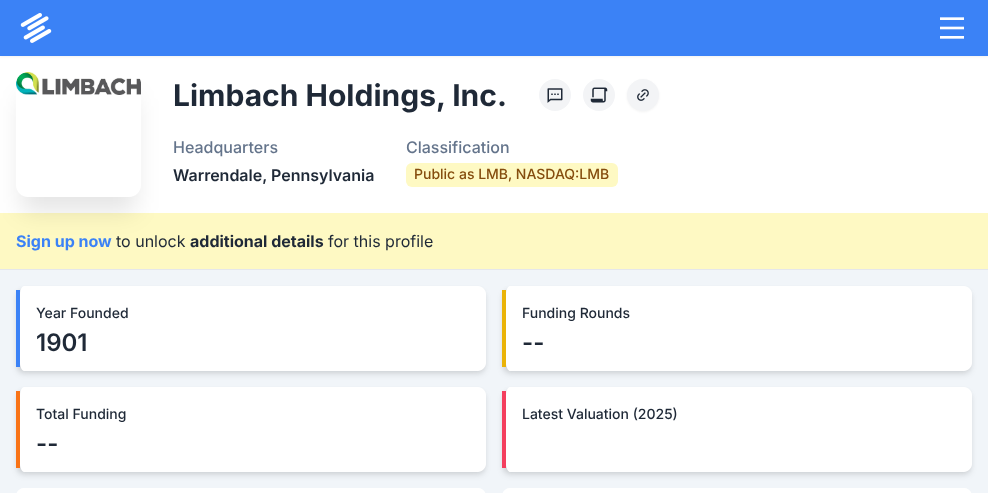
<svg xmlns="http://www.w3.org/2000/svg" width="988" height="493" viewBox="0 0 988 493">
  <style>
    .t1 { font: bold 30px Inter; fill: #1f2937; }
    .t2 { font: 500 16px Inter; fill: #64748b; }
    .t3 { font: 600 16px Inter; fill: #1f2937; }
    .t4 { font: 500 14px Inter; fill: #854d0e; }
    .t5 { font: bold 16px Inter; fill: #3b82f6; }
    .t6 { font: 16px Inter; fill: #1f2937; }
    .t7 { font: bold 16px Inter; fill: #1f2937; }
    .t8 { font: 500 14px Inter; fill: #1f2937; }
    .t9 { font: 600 24px Inter; fill: #1f2937; }
  </style>
  <defs>
    <clipPath id="clip1"><path d="M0 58H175V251H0ZM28 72H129C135.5 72 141 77.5 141 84V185C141 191.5 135.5 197 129 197H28C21.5 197 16 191.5 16 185V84C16 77.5 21.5 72 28 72Z" clip-rule="evenodd"/></clipPath>
  </defs>
  <rect width="100%" height="100%" fill="#fff"/>
  <rect x="0" y="1" width="988" height="56" fill="#0000000d" filter="blur(1px)"/>
  <rect x="0" y="0" width="988" height="56" fill="#3b82f6"/>
  <image x="20" y="13" width="32" height="30" href="images/1.png"/>
  <image x="940" y="17" width="24" height="22" href="images/2.png"/>
  <rect x="0" y="213" width="988" height="56" fill="#fef9c3"/>
  <g clip-path="url(#clip1)">
    <rect x="21" y="97" width="115" height="115" rx="7" fill="#0000001a" filter="blur(12.5px)"/>
  </g>
  <image x="16" y="72" width="125" height="23" href="images/3.png"/>
  <text x="173" y="106" class="t1">Limbach Holdings, Inc.</text>
  <circle cx="555" cy="95" r="16" fill="#f3f4f6"/>
  <image x="547" y="88" width="16" height="15" href="images/4.png"/>
  <circle cx="599" cy="95" r="16" fill="#f3f4f6"/>
  <image x="590" y="87" width="18" height="16" href="images/5.png"/>
  <rect x="627" y="80" width="32" height="32" rx="16" fill="#0000000d" filter="blur(1px)"/>
  <circle cx="643" cy="95" r="16" fill="#f3f4f6"/>
  <image x="637" y="89" width="12" height="12" href="images/6.png"/>
  <text x="173" y="153" class="t2">Headquarters</text>
  <text x="173" y="181" class="t3">Warrendale, Pennsylvania</text>
  <text x="406" y="153" class="t2">Classification</text>
  <rect x="406" y="163" width="212" height="24" rx="6" fill="#fef9c3"/>
  <text x="414" y="179" class="t4">Public as LMB, NASDAQ:LMB</text>
  <rect x="0" y="270" width="988" height="223" fill="#f1f5f9"/>
  <rect x="0" y="269" width="988" height="1" fill="#e5e7eb"/>
  <text x="16" y="247" class="t5">Sign up now</text>
  <text x="116" y="247" class="t6">to unlock</text>
  <text x="190" y="247" class="t7">additional details</text>
  <text x="328" y="247" class="t6">for this profile</text>
  <rect x="17" y="289" width="468" height="83" rx="7" fill="#0000000f" filter="blur(2px)"/>
  <rect x="17" y="291" width="468" height="83" rx="7" fill="#0000001a" filter="blur(3px)"/>
  <path d="M24 286H478C482 286 486 290 486 294V363C486 367 482 371 478 371H24C22 371 20 367 20 363V294C20 290 22 286 24 286Z" fill="#fff"/>
  <rect x="16" y="290" width="4" height="77" fill="#3b82f6"/>
  <text x="36" y="318" class="t8">Year Founded</text>
  <text x="36" y="351" class="t9">1901</text>
  <rect x="503" y="289" width="468" height="83" rx="7" fill="#0000000f" filter="blur(2px)"/>
  <rect x="503" y="291" width="468" height="83" rx="7" fill="#0000001a" filter="blur(3px)"/>
  <path d="M510 286H964C968 286 972 290 972 294V363C972 367 968 371 964 371H510C508 371 506 367 506 363V294C506 290 508 286 510 286Z" fill="#fff"/>
  <rect x="502" y="290" width="4" height="77" fill="#eab308"/>
  <text x="522" y="318" class="t8">Funding Rounds</text>
  <text x="522" y="351" class="t9">--</text>
  <rect x="17" y="390" width="468" height="83" rx="7" fill="#0000000f" filter="blur(2px)"/>
  <rect x="17" y="392" width="468" height="83" rx="7" fill="#0000001a" filter="blur(3px)"/>
  <path d="M24 387H478C482 387 486 391 486 395V464C486 468 482 472 478 472H24C22 472 20 468 20 464V395C20 391 22 387 24 387Z" fill="#fff"/>
  <rect x="16" y="391" width="4" height="77" fill="#f97316"/>
  <text x="36" y="419" class="t8">Total Funding</text>
  <text x="36" y="452" class="t9">--</text>
  <rect x="503" y="390" width="468" height="83" rx="7" fill="#0000000f" filter="blur(2px)"/>
  <rect x="503" y="392" width="468" height="83" rx="7" fill="#0000001a" filter="blur(3px)"/>
  <path d="M510 387H964C968 387 972 391 972 395V464C972 468 968 472 964 472H510C508 472 506 468 506 464V395C506 391 508 387 510 387Z" fill="#fff"/>
  <rect x="502" y="391" width="4" height="77" fill="#f43f5e"/>
  <text x="522" y="419" class="t8">Latest Valuation (2025)</text>
  <path d="M24 488H478C482.5 488 486 491.5 486 496V493H16V496C16 491.5 19.5 488 24 488Z" fill="#fff"/>
  <path d="M510 488H964C968.5 488 972 491.5 972 496V493H502V496C502 491.5 505.5 488 510 488Z" fill="#fff"/>
</svg>
